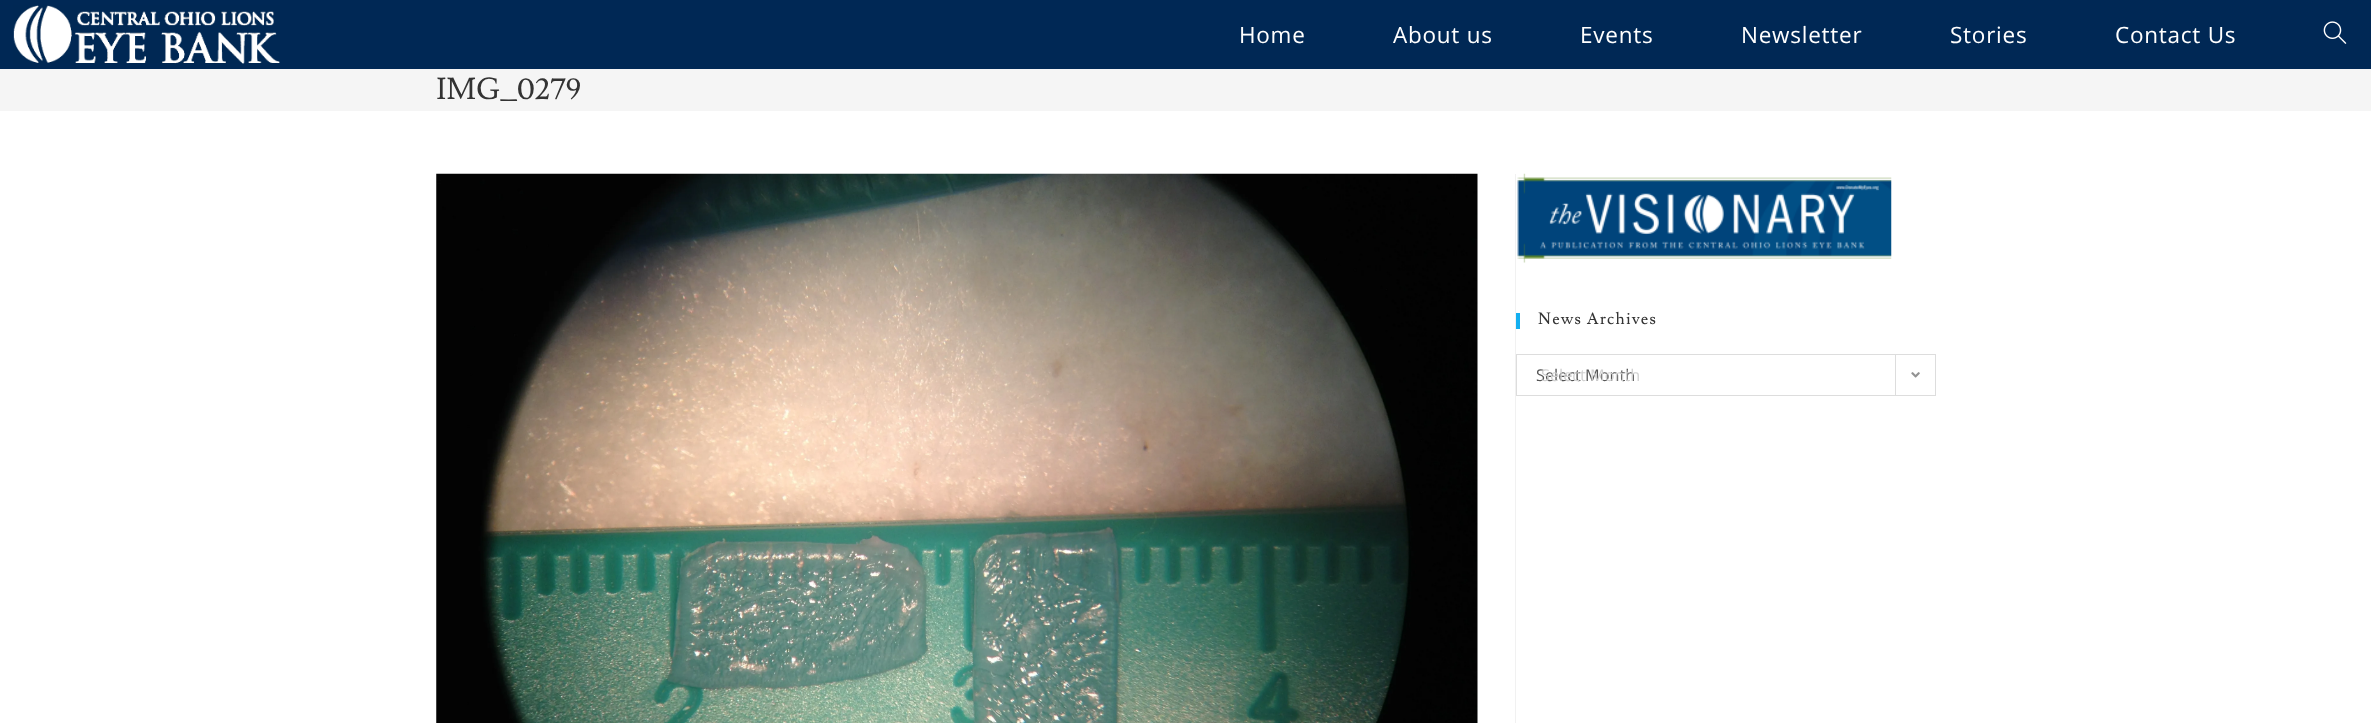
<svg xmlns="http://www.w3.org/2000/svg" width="2371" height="723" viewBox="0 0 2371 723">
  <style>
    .t1 { font: 22.5px Open Sans; letter-spacing: 0.75px; fill: #fff; }
    .t2 { font: 30px Lusitana; fill: #333; }
    .t3 { font: 16.25px Lusitana; letter-spacing: 1.25px; fill: #333; }
    .t4 { font: 16.25px Open Sans; fill: #555; }
    .t5 { font: 16.25px Open Sans; fill: #d1d1d1; }
  </style>
  <rect width="100%" height="100%" fill="#fff"/>
  <rect x="0" y="0" width="2371" height="69" fill="#002855"/>
  <image x="13" y="5" width="267" height="59" href="images/1.png"/>
  <text x="1239" y="43" class="t1">Home</text>
  <text x="1393" y="43" class="t1">About us</text>
  <text x="1580" y="43" class="t1">Events</text>
  <text x="1741" y="43" class="t1">Newsletter</text>
  <text x="1950" y="43" class="t1">Stories</text>
  <text x="2115" y="43" class="t1">Contact Us</text>
  <image x="2323" y="21" width="24" height="23" href="images/2.png"/>
  <rect x="0" y="69" width="2371" height="42" fill="#f5f5f5"/>
  <text x="436" y="99" class="t2">IMG_0279</text>
  <rect x="1515" y="174" width="1" height="549" fill="#f1f1f1"/>
  <image x="436" y="173" width="1042" height="550" href="images/3.png"/>
  <image x="1517" y="173" width="375" height="90" href="images/4.png"/>
  <rect x="1516" y="313" width="4" height="16" fill="#13aff0"/>
  <text x="1538" y="324" class="t3">News Archives</text>
  <rect x="1516.5" y="354.5" width="419" height="41" fill="none" stroke="#ddd"/>
  <text x="1536" y="381" class="t4">Select Month</text>
  <rect x="1895" y="355" width="1" height="40" fill="#ddd"/>
  <image x="1911" y="372" width="9" height="6" href="images/5.png"/>
  <text x="1541" y="381" class="t5">Select Month</text>
</svg>
